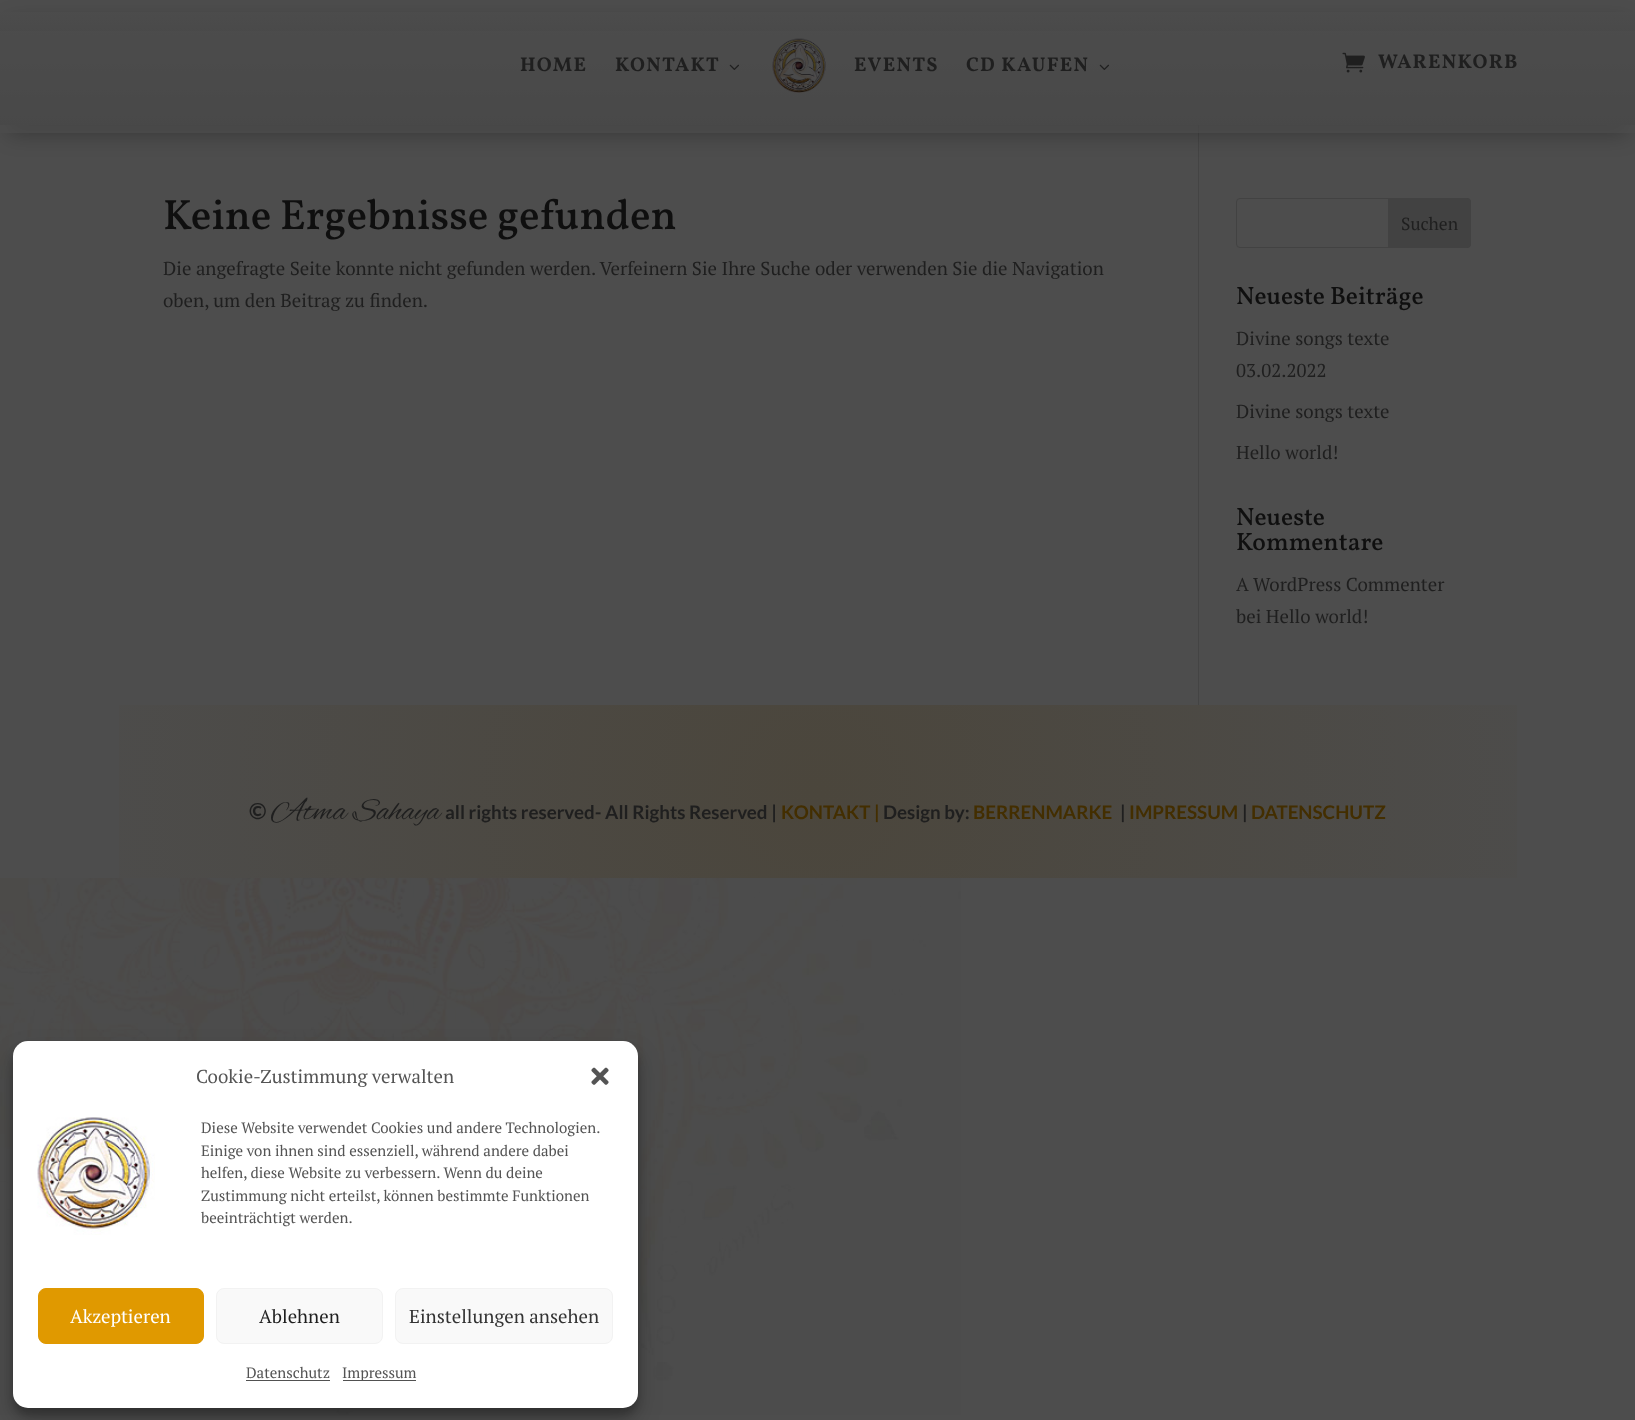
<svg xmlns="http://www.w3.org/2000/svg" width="1635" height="1420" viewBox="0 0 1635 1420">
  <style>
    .t1 { font: bold 20px Vollkorn; letter-spacing: 1.25px; fill: #1f1f1f; }
    .t2 { font: 500 42.5px Vollkorn; fill: #0f0f0f; }
    .t3 { font: 18.75px PT Serif; fill: #1f1f1f; }
    .t4 { font: 17.5px PT Serif; fill: #1f1f1f; }
    .t5 { font: 500 25px Vollkorn; fill: #0f0f0f; }
    .t6 { font: bold 22px Lato; fill: #1f1f1f; }
    .t7 { font: 32px Alex Brush; fill: #1f1f1f; }
    .t8 { font: bold 18.75px Lato; fill: #1f1f1f; }
    .t9 { font: bold 18.75px Lato; fill: #432e00; }
    .t10 { font: 18.75px PT Serif; fill: #545454; }
    .t11 { font: 15px PT Serif; fill: #545454; }
    .t12 { font: 18.75px PT Serif; fill: #fff; }
    .t13 { font: 18.75px PT Serif; fill: #333; }
  </style>
  <defs>
    <linearGradient id="g1" gradientUnits="userSpaceOnUse" x1="818" y1="0" x2="818" y2="125"><stop offset="0" stop-color="#4d4d4d"/><stop offset="1" stop-color="#3f3f3f"/></linearGradient>
    <radialGradient id="g2" gradientUnits="userSpaceOnUse" cx="818" cy="791" r="822"><stop offset="0" stop-color="#4b463c"/><stop offset="1" stop-color="#4d4d4d"/></radialGradient>
  </defs>
  <rect width="100%" height="100%" fill="#4d4d4d"/>
  <image x="0" y="878" width="961" height="537" href="images/1.png"/>
  <rect x="1198" y="125" width="1" height="580" fill="#444"/>
  <rect x="8" y="23" width="1620" height="110" fill="#0000004d" filter="blur(11px)"/>
  <rect x="0" y="12" width="1635" height="113" fill="url(#g1)"/>
  <rect x="0" y="31" width="1635" height="102" fill="#4d4d4db3"/>
  <text x="520" y="71" class="t1">HOME</text>
  <text x="615" y="71" class="t1">KONTAKT</text>
  <image x="729" y="64" width="10" height="6" href="images/2.png"/>
  <image x="772" y="38" width="54" height="55" href="images/3.png"/>
  <text x="854" y="71" class="t1">EVENTS</text>
  <text x="966" y="71" class="t1">CD KAUFEN</text>
  <image x="1099" y="64" width="10" height="6" href="images/2.png"/>
  <image x="1342" y="52" width="23" height="21" href="images/4.png"/>
  <text x="1378" y="68" class="t1">WARENKORB</text>
  <text x="163" y="229" class="t2">Keine Ergebnisse gefunden</text>
  <text x="163" y="275" class="t3">Die angefragte Seite konnte nicht gefunden werden. Verfeinern Sie Ihre Suche oder verwenden Sie die Navigation</text>
  <text x="163" y="307" class="t3">oben, um den Beitrag zu finden.</text>
  <rect x="1236.5" y="198.5" width="234" height="49" rx="3.5" fill="none" stroke="#424242"/>
  <path d="M1388 198H1467C1469 198 1471 200 1471 202V244C1471 246 1469 248 1467 248H1388Z" fill="#424242"/>
  <text x="1401" y="230" class="t4">Suchen</text>
  <text x="1236" y="304" class="t5">Neueste Beiträge</text>
  <text x="1236" y="345" class="t3">Divine songs texte</text>
  <text x="1236" y="377" class="t3">03.02.2022</text>
  <text x="1236" y="418" class="t3">Divine songs texte</text>
  <text x="1236" y="459" class="t3">Hello world!</text>
  <text x="1236" y="525" class="t5">Neueste</text>
  <text x="1236" y="550" class="t5">Kommentare</text>
  <text x="1236" y="591" class="t3">A WordPress Commenter</text>
  <text x="1236" y="623" class="t3">bei Hello world!</text>
  <rect x="119" y="705" width="1398" height="173" fill="url(#g2)"/>
  <text x="249" y="819" class="t6">©</text>
  <text x="271" y="819" class="t7">Atma Sahaya</text>
  <text x="445" y="819" class="t8">all rights reserved- All Rights Reserved |</text>
  <text x="781" y="819" class="t9">KONTAKT |</text>
  <text x="883" y="819" class="t8">Design by:</text>
  <text x="973" y="819" class="t9">BERRENMARKE</text>
  <text x="1120" y="819" class="t8">|</text>
  <text x="1129" y="819" class="t9">IMPRESSUM</text>
  <text x="1242" y="819" class="t8">|</text>
  <text x="1251" y="819" class="t9">DATENSCHUTZ</text>
  <rect x="13" y="1049" width="625" height="366" rx="15" fill="#0000003b" filter="blur(4px)"/>
  <rect x="13" y="1054" width="625" height="366" rx="15" fill="#00000030" filter="blur(12.5px)"/>
  <rect x="13" y="1041" width="625" height="367" rx="15" fill="#fff"/>
  <text x="196" y="1083" class="t10">Cookie-Zustimmung verwalten</text>
  <image x="591" y="1067" width="18" height="18" href="images/5.png"/>
  <image x="37" y="1117" width="118" height="118" href="images/6.png"/>
  <text x="201" y="1133" class="t11">Diese Website verwendet Cookies und andere Technologien.</text>
  <text x="201" y="1156" class="t11">Einige von ihnen sind essenziell, während andere dabei</text>
  <text x="201" y="1178" class="t11">helfen, diese Website zu verbessern. Wenn du deine</text>
  <text x="201" y="1201" class="t11">Zustimmung nicht erteilst, können bestimmte Funktionen</text>
  <text x="201" y="1223" class="t11">beeinträchtigt werden.</text>
  <rect x="38.5" y="1288.5" width="165" height="55" rx="7.5" fill="#e09900" stroke="#e09900"/>
  <text x="70" y="1323" class="t12">Akzeptieren</text>
  <rect x="216.5" y="1288.5" width="166" height="55" rx="7.5" fill="#f9f9f9" stroke="#f2f2f2"/>
  <text x="259" y="1323" class="t3">Ablehnen</text>
  <rect x="395.5" y="1288.5" width="217" height="55" rx="7.5" fill="#f9f9f9" stroke="#f2f2f2"/>
  <text x="409" y="1323" class="t13">Einstellungen ansehen</text>
  <text x="246" y="1378" class="t11">Datenschutz</text>
  <rect x="246" y="1380" width="84" height="1" fill="#515151"/>
  <rect x="343" y="1380" width="73" height="1" fill="#515151"/>
  <text x="342" y="1378" class="t11">Impressum</text>
</svg>
